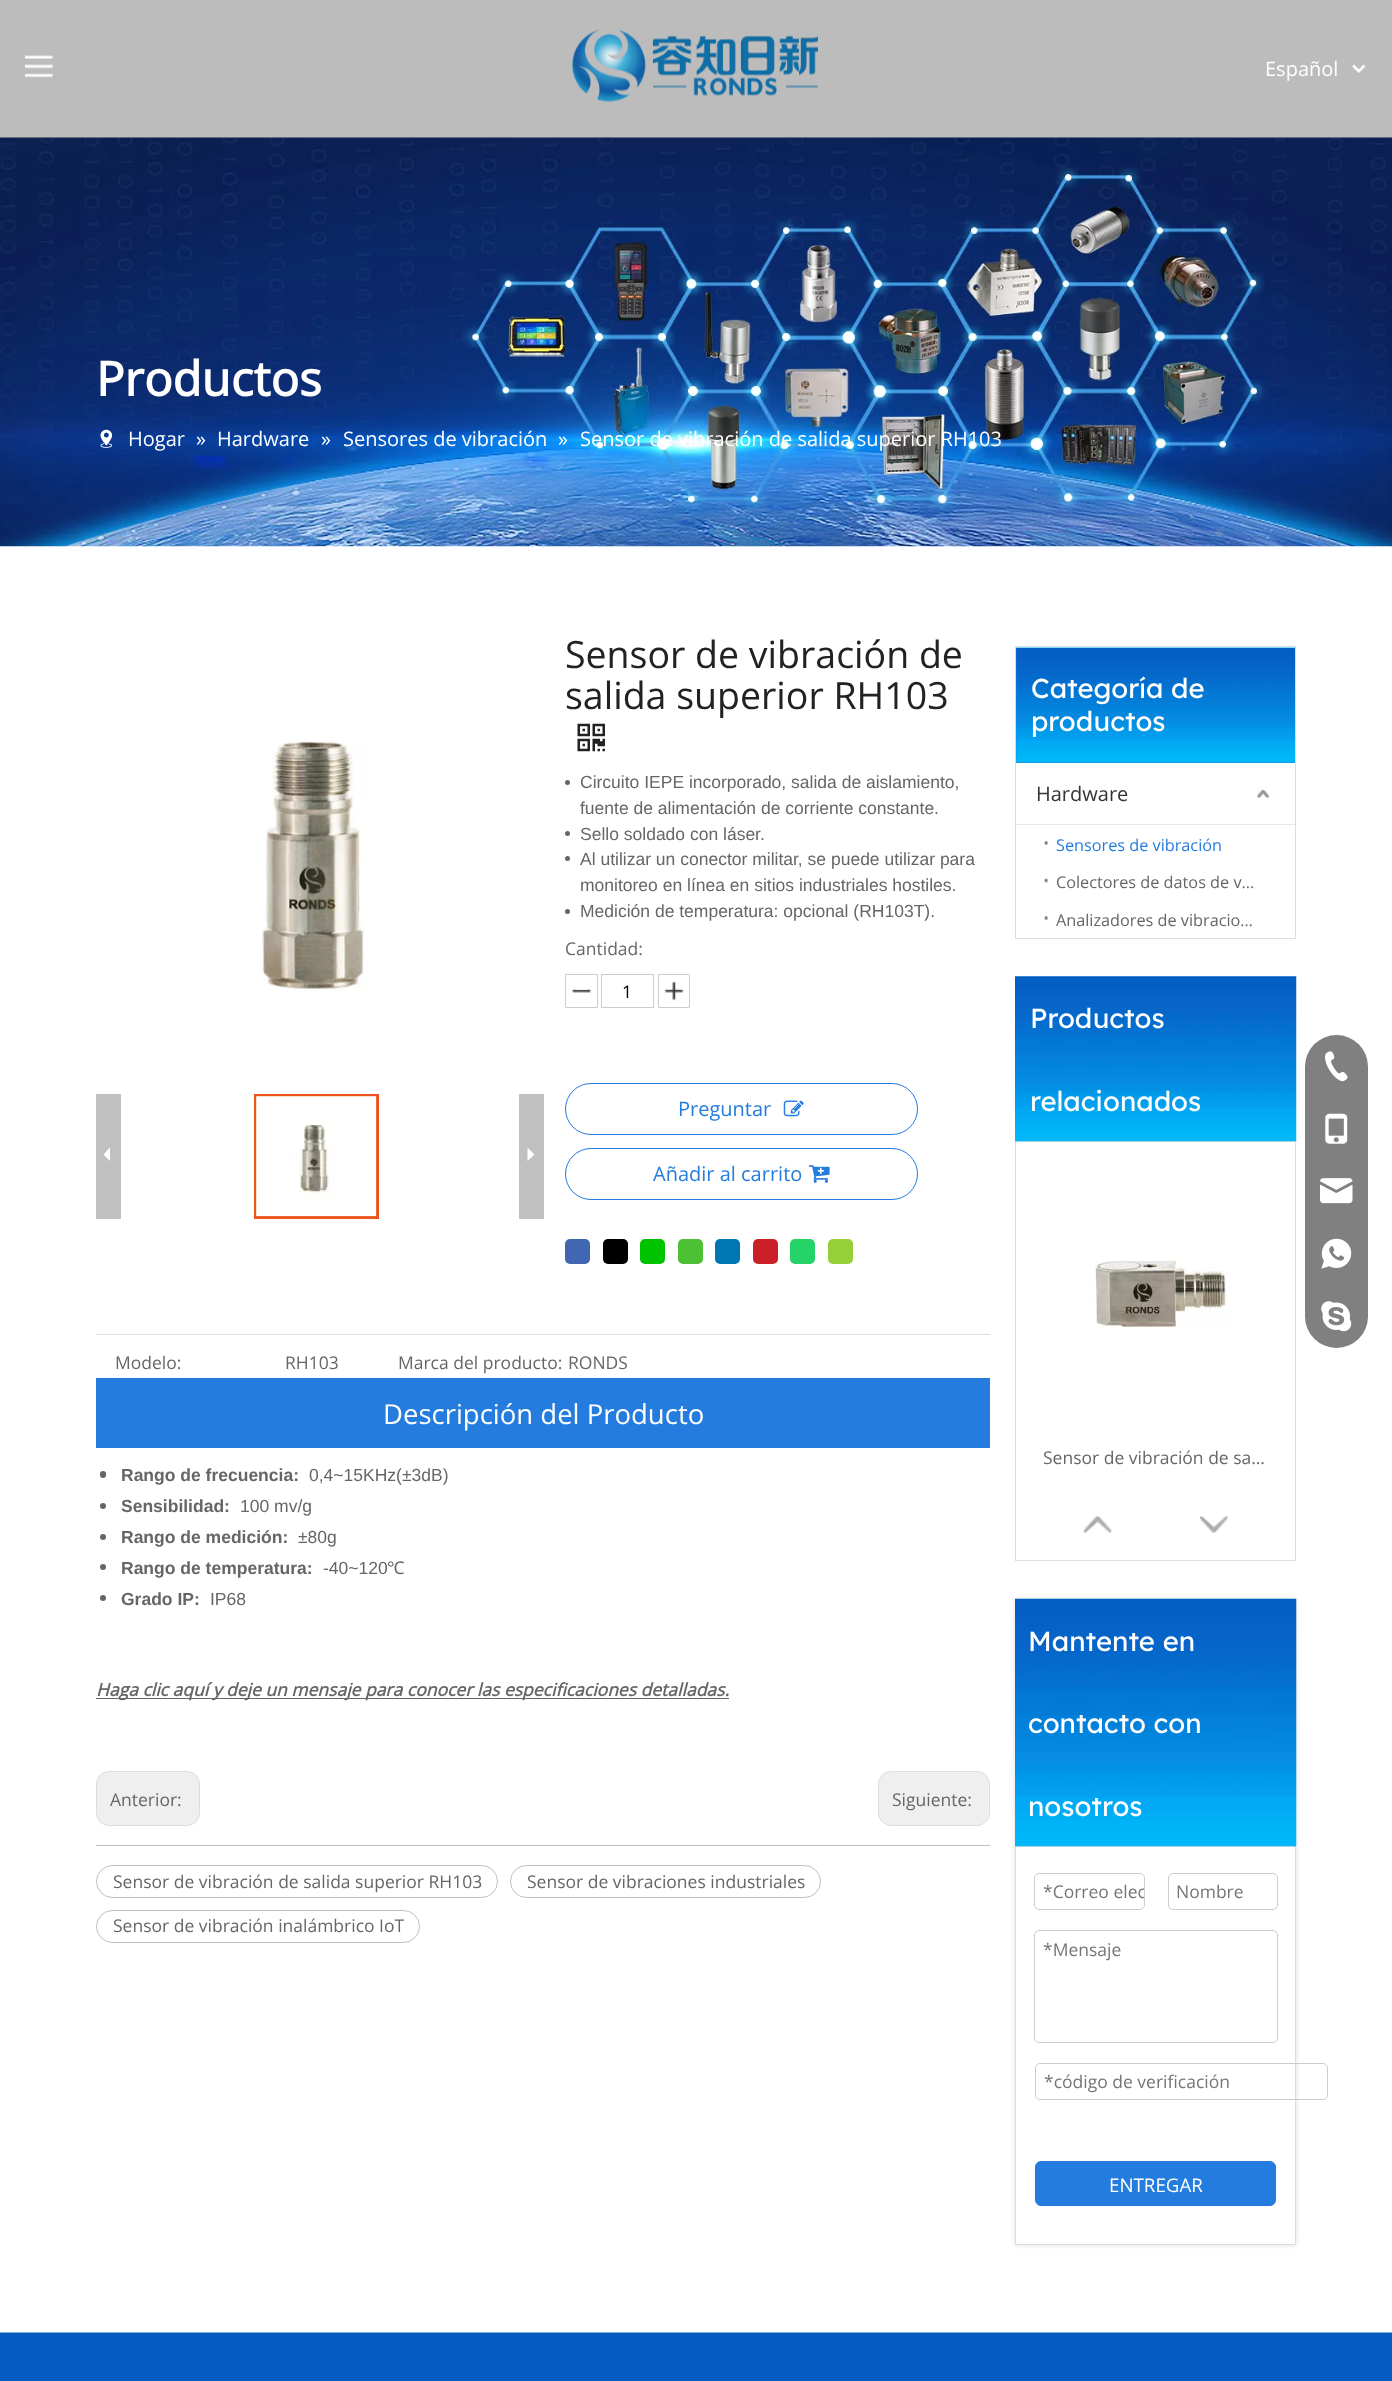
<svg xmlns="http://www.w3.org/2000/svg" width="1392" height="2381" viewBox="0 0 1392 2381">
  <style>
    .t1 { font: 20px Open Sans; fill: #fff; }
    .t2 { font: bold 47.5px Open Sans; fill: #fff; }
    .t3 { font: 37.5px Open Sans; fill: #222; }
    .t4 { font: 17.5px Liberation Sans; fill: #666; }
    .t5 { font: 17.5px Open Sans; fill: #666; }
    .t6 { font: 17.5px Open Sans; fill: #000; }
    .t7 { font: 20px Open Sans; fill: #247cde; }
    .t8 { font: 27.5px Open Sans; fill: #fff; }
    .t9 { font: bold 17.5px Liberation Sans; fill: #666; }
    .t10 { font: 17.5px Noto Sans; fill: #666; }
    .t11 { font: italic bold 17.5px Open Sans; fill: #666; }
    .t12 { font: 27.5px Lexend Deca; fill: #fff; }
    .t13 { font: 20px Open Sans; fill: #333; }
    .t14 { font: 16.25px Open Sans; fill: #247cde; }
    .t15 { font: 16.25px Open Sans; fill: #666; }
    .t16 { font: 17.5px Open Sans; fill: #757575; }
    .t17 { font: 18.75px Open Sans; fill: #fff; }
  </style>
  <defs>
    <clipPath id="clip1"><path d="M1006 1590H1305V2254H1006ZM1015 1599H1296V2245H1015Z" clip-rule="evenodd"/></clipPath>
    <clipPath id="clip2"><rect x="1035" y="1879" width="109" height="24"/></clipPath>
  </defs>
  <rect width="100%" height="100%" fill="#fff"/>
  <image x="0" y="137" width="1392" height="410" href="images/4.png"/>
  <rect x="0" y="0" width="1392" height="138" fill="#2222224d"/>
  <image x="572" y="29" width="246" height="73" href="images/1.png"/>
  <image x="25" y="55" width="28" height="23" href="images/2.png"/>
  <text x="1265" y="76" class="t1">Español</text>
  <image x="1352" y="64" width="14" height="9" href="images/3.png"/>
  <text x="96" y="396" class="t2">Productos</text>
  <image x="100" y="429" width="13" height="19" href="images/5.png"/>
  <text x="128" y="446" class="t1">Hogar</text>
  <text x="196" y="446" class="t1">»</text>
  <text x="217" y="446" class="t1">Hardware</text>
  <text x="321" y="446" class="t1">»</text>
  <text x="343" y="446" class="t1">Sensores de vibración</text>
  <text x="558" y="446" class="t1">»</text>
  <text x="580" y="446" class="t1">Sensor de vibración de salida superior RH103</text>
  <image x="261" y="740" width="104" height="252" href="images/6.png"/>
  <rect x="96" y="1094" width="25" height="125" fill="#c0c0c0"/>
  <path d="M110 1147.5V1161L104 1155V1154Z" fill="#fff"/>
  <rect x="255.5" y="1095.5" width="122" height="122" fill="none" stroke="#ee531b" stroke-width="3"/>
  <image x="256" y="1096" width="121" height="121" href="images/7.png"/>
  <image x="256" y="1096" width="121" height="121" href="images/8.png"/>
  <rect x="519" y="1094" width="25" height="125" fill="#c0c0c0"/>
  <path d="M527.5 1161V1147.5L534 1154V1155Z" fill="#fff"/>
  <text x="565" y="668" class="t3">Sensor de vibración de</text>
  <text x="565" y="709" class="t3">salida superior RH103</text>
  <image x="577" y="723" width="28" height="29" href="images/9.png"/>
  <circle cx="567.5" cy="782.5" r="2.5" fill="#666"/>
  <text x="580" y="788" class="t4">Circuito IEPE incorporado, salida de aislamiento,</text>
  <text x="580" y="814" class="t4">fuente de alimentación de corriente constante.</text>
  <circle cx="567.5" cy="833.5" r="2.5" fill="#666"/>
  <text x="580" y="840" class="t4">Sello soldado con láser.</text>
  <circle cx="567.5" cy="858.5" r="2.5" fill="#666"/>
  <text x="580" y="865" class="t4">Al utilizar un conector militar, se puede utilizar para</text>
  <text x="580" y="891" class="t4">monitoreo en línea en sitios industriales hostiles.</text>
  <circle cx="567.5" cy="911.5" r="2.5" fill="#666"/>
  <text x="580" y="917" class="t4">Medición de temperatura: opcional (RH103T).</text>
  <text x="565" y="955" class="t5">Cantidad:</text>
  <image x="572" y="988" width="20" height="5" href="images/10.png"/>
  <rect x="565.5" y="974.5" width="32" height="33" rx="0.5" fill="none" stroke="#ccc"/>
  <rect x="601.5" y="974.5" width="52" height="33" fill="none" stroke="#ccc"/>
  <text x="622" y="998" class="t6">1</text>
  <image x="664" y="981" width="20" height="20" href="images/11.png"/>
  <rect x="658.5" y="974.5" width="31" height="33" rx="0.5" fill="none" stroke="#ccc"/>
  <rect x="565.5" y="1083.5" width="352" height="51" rx="25.5" fill="none" stroke="#247cde"/>
  <text x="678" y="1116" class="t7">Preguntar</text>
  <image x="783" y="1100" width="21" height="17" href="images/12.png"/>
  <rect x="565.5" y="1148.5" width="352" height="51" rx="25.5" fill="none" stroke="#247cde"/>
  <text x="653" y="1181" class="t7">Añadir al carrito</text>
  <image x="808" y="1165" width="22" height="18" href="images/13.png"/>
  <rect x="565" y="1239" width="25" height="25" rx="5" fill="#4267b2"/>
  <rect x="603" y="1239" width="25" height="25" rx="5" fill="#000"/>
  <rect x="640" y="1239" width="25" height="25" rx="5" fill="#00c300"/>
  <rect x="678" y="1239" width="25" height="25" rx="5" fill="#4ec034"/>
  <rect x="715" y="1239" width="25" height="25" rx="5" fill="#0077b5"/>
  <rect x="753" y="1239" width="25" height="25" rx="5" fill="#cb2027"/>
  <rect x="790" y="1239" width="25" height="25" rx="5" fill="#25d366"/>
  <rect x="828" y="1239" width="25" height="25" rx="5" fill="#95d03a"/>
  <rect x="96" y="1334" width="894" height="1" fill="#dfdfdf"/>
  <text x="115" y="1369" class="t5">Modelo:</text>
  <text x="285" y="1369" class="t5">RH103</text>
  <text x="398" y="1369" class="t5">Marca del producto:</text>
  <text x="568" y="1369" class="t5">RONDS</text>
  <rect x="96" y="1378" width="894" height="70" fill="#247cde"/>
  <text x="383" y="1424" class="t8">Descripción del Producto</text>
  <rect x="100" y="1471" width="6" height="7" rx="3" fill="#666"/>
  <text x="121" y="1481" class="t9">Rango de frecuencia:</text>
  <text x="309" y="1481" class="t4">0,4~15KHz(±3dB)</text>
  <circle cx="103" cy="1506" r="3" fill="#666"/>
  <text x="121" y="1512" class="t9">Sensibilidad:</text>
  <text x="240" y="1512" class="t4">100 mv/g</text>
  <circle cx="103" cy="1537" r="3" fill="#666"/>
  <text x="121" y="1543" class="t9">Rango de medición:</text>
  <text x="298" y="1543" class="t4">±80g</text>
  <circle cx="103" cy="1567" r="3" fill="#666"/>
  <text x="121" y="1574" class="t9">Rango de temperatura:</text>
  <text x="323" y="1574" class="t4">-40~120</text>
  <text x="387" y="1574" class="t10">℃</text>
  <circle cx="103" cy="1598" r="3" fill="#666"/>
  <text x="121" y="1605" class="t9">Grado IP:</text>
  <text x="210" y="1605" class="t4">IP68</text>
  <rect x="96" y="1698" width="633" height="1" fill="#666"/>
  <text x="96" y="1696" class="t11">Haga clic aquí y deje un mensaje para conocer las especificaciones detalladas.</text>
  <rect x="96.5" y="1771.5" width="103" height="54" rx="12.5" fill="#efefef" stroke="#ddd"/>
  <text x="110" y="1806" class="t5">Anterior:</text>
  <rect x="878.5" y="1771.5" width="111" height="54" rx="12.5" fill="#efefef" stroke="#ddd"/>
  <text x="892" y="1806" class="t5">Siguiente:</text>
  <rect x="96" y="1845" width="894" height="1" fill="#c0c0c0"/>
  <rect x="96.5" y="1865.5" width="401" height="32" rx="16" fill="none" stroke="#c0c0c0"/>
  <text x="113" y="1888" class="t5">Sensor de vibración de salida superior RH103</text>
  <rect x="510.5" y="1865.5" width="310" height="32" rx="16" fill="none" stroke="#c0c0c0"/>
  <text x="527" y="1888" class="t5">Sensor de vibraciones industriales</text>
  <rect x="96.5" y="1910.5" width="323" height="32" rx="16" fill="none" stroke="#c0c0c0"/>
  <text x="113" y="1932" class="t5">Sensor de vibración inalámbrico IoT</text>
  <rect x="1015.5" y="646.5" width="280" height="292" fill="none" stroke="#ddd"/>
  <rect x="1016" y="648" width="279" height="115" fill="#247cde"/>
  <image x="1016" y="647" width="279" height="116" href="images/14.png"/>
  <text x="1031" y="698" class="t12">Categoría de</text>
  <text x="1031" y="731" class="t12">productos</text>
  <text x="1036" y="801" class="t13">Hardware</text>
  <image x="1257" y="789" width="12" height="9" href="images/15.png"/>
  <rect x="1016" y="824" width="279" height="1" fill="#e7e7e7"/>
  <image x="1044" y="841" width="4" height="4" href="images/16.png"/>
  <text x="1056" y="851" class="t14">Sensores de vibración</text>
  <image x="1044" y="878" width="4" height="5" href="images/17.png"/>
  <text x="1056" y="888" class="t15">Colectores de datos de v…</text>
  <image x="1044" y="916" width="4" height="4" href="images/16.png"/>
  <text x="1056" y="926" class="t15">Analizadores de vibracio…</text>
  <rect x="1015.5" y="1141.5" width="280" height="419" fill="none" stroke="#ddd"/>
  <image x="1015" y="976" width="282" height="166" href="images/18.png"/>
  <text x="1030" y="1028" class="t12">Productos</text>
  <text x="1030" y="1111" class="t12">relacionados</text>
  <image x="1095" y="1259" width="133" height="69" href="images/19.png"/>
  <text x="1043" y="1464" class="t5">Sensor de vibración de sa…</text>
  <image x="1083" y="1516" width="29" height="17" href="images/20.png"/>
  <image x="1200" y="1516" width="28" height="17" href="images/21.png"/>
  <g clip-path="url(#clip1)">
    <rect x="1015" y="1599" width="281" height="646" fill="#ddd" filter="blur(2.5px)"/>
  </g>
  <rect x="1015.5" y="1846.5" width="280" height="398" fill="none" stroke="#ddd"/>
  <image x="1015" y="1598" width="282" height="249" href="images/22.png"/>
  <text x="1028" y="1651" class="t12">Mantente en</text>
  <text x="1028" y="1733" class="t12">contacto con</text>
  <text x="1028" y="1816" class="t12">nosotros</text>
  <rect x="1034.5" y="1873.5" width="110" height="36" rx="4.5" fill="none" stroke="#ccc"/>
  <g clip-path="url(#clip2)">
    <text x="1043" y="1898" class="t16">*Correo elec</text>
  </g>
  <rect x="1168.5" y="1873.5" width="109" height="36" rx="4.5" fill="none" stroke="#ccc"/>
  <text x="1176" y="1898" class="t16">Nombre</text>
  <rect x="1034.5" y="1930.5" width="243" height="112" rx="4.5" fill="none" stroke="#ccc"/>
  <text x="1043" y="1956" class="t16">*Mensaje</text>
  <rect x="1035.5" y="2063.5" width="292" height="36" rx="4.5" fill="none" stroke="#ccc"/>
  <text x="1044" y="2088" class="t16">*código de verificación</text>
  <rect x="1035.5" y="2161.5" width="240" height="44" rx="5.5" fill="#247cde" stroke="#247cde"/>
  <text x="1109" y="2192" class="t17">ENTREGAR</text>
  <rect x="0" y="2333" width="1392" height="48" fill="#065bc3"/>
  <rect x="0" y="2332" width="1392" height="1" fill="#82aee1"/>
  <rect x="1305" y="1035" width="63" height="313" rx="31.5" fill="#808080"/>
  <image x="1325" y="1051" width="23" height="31" href="images/23.png"/>
  <image x="1325" y="1113" width="23" height="31" href="images/24.png"/>
  <image x="1320" y="1178" width="33" height="26" href="images/25.png"/>
  <image x="1321" y="1238" width="31" height="31" href="images/26.png"/>
  <image x="1321" y="1301" width="31" height="31" href="images/27.png"/>
</svg>
